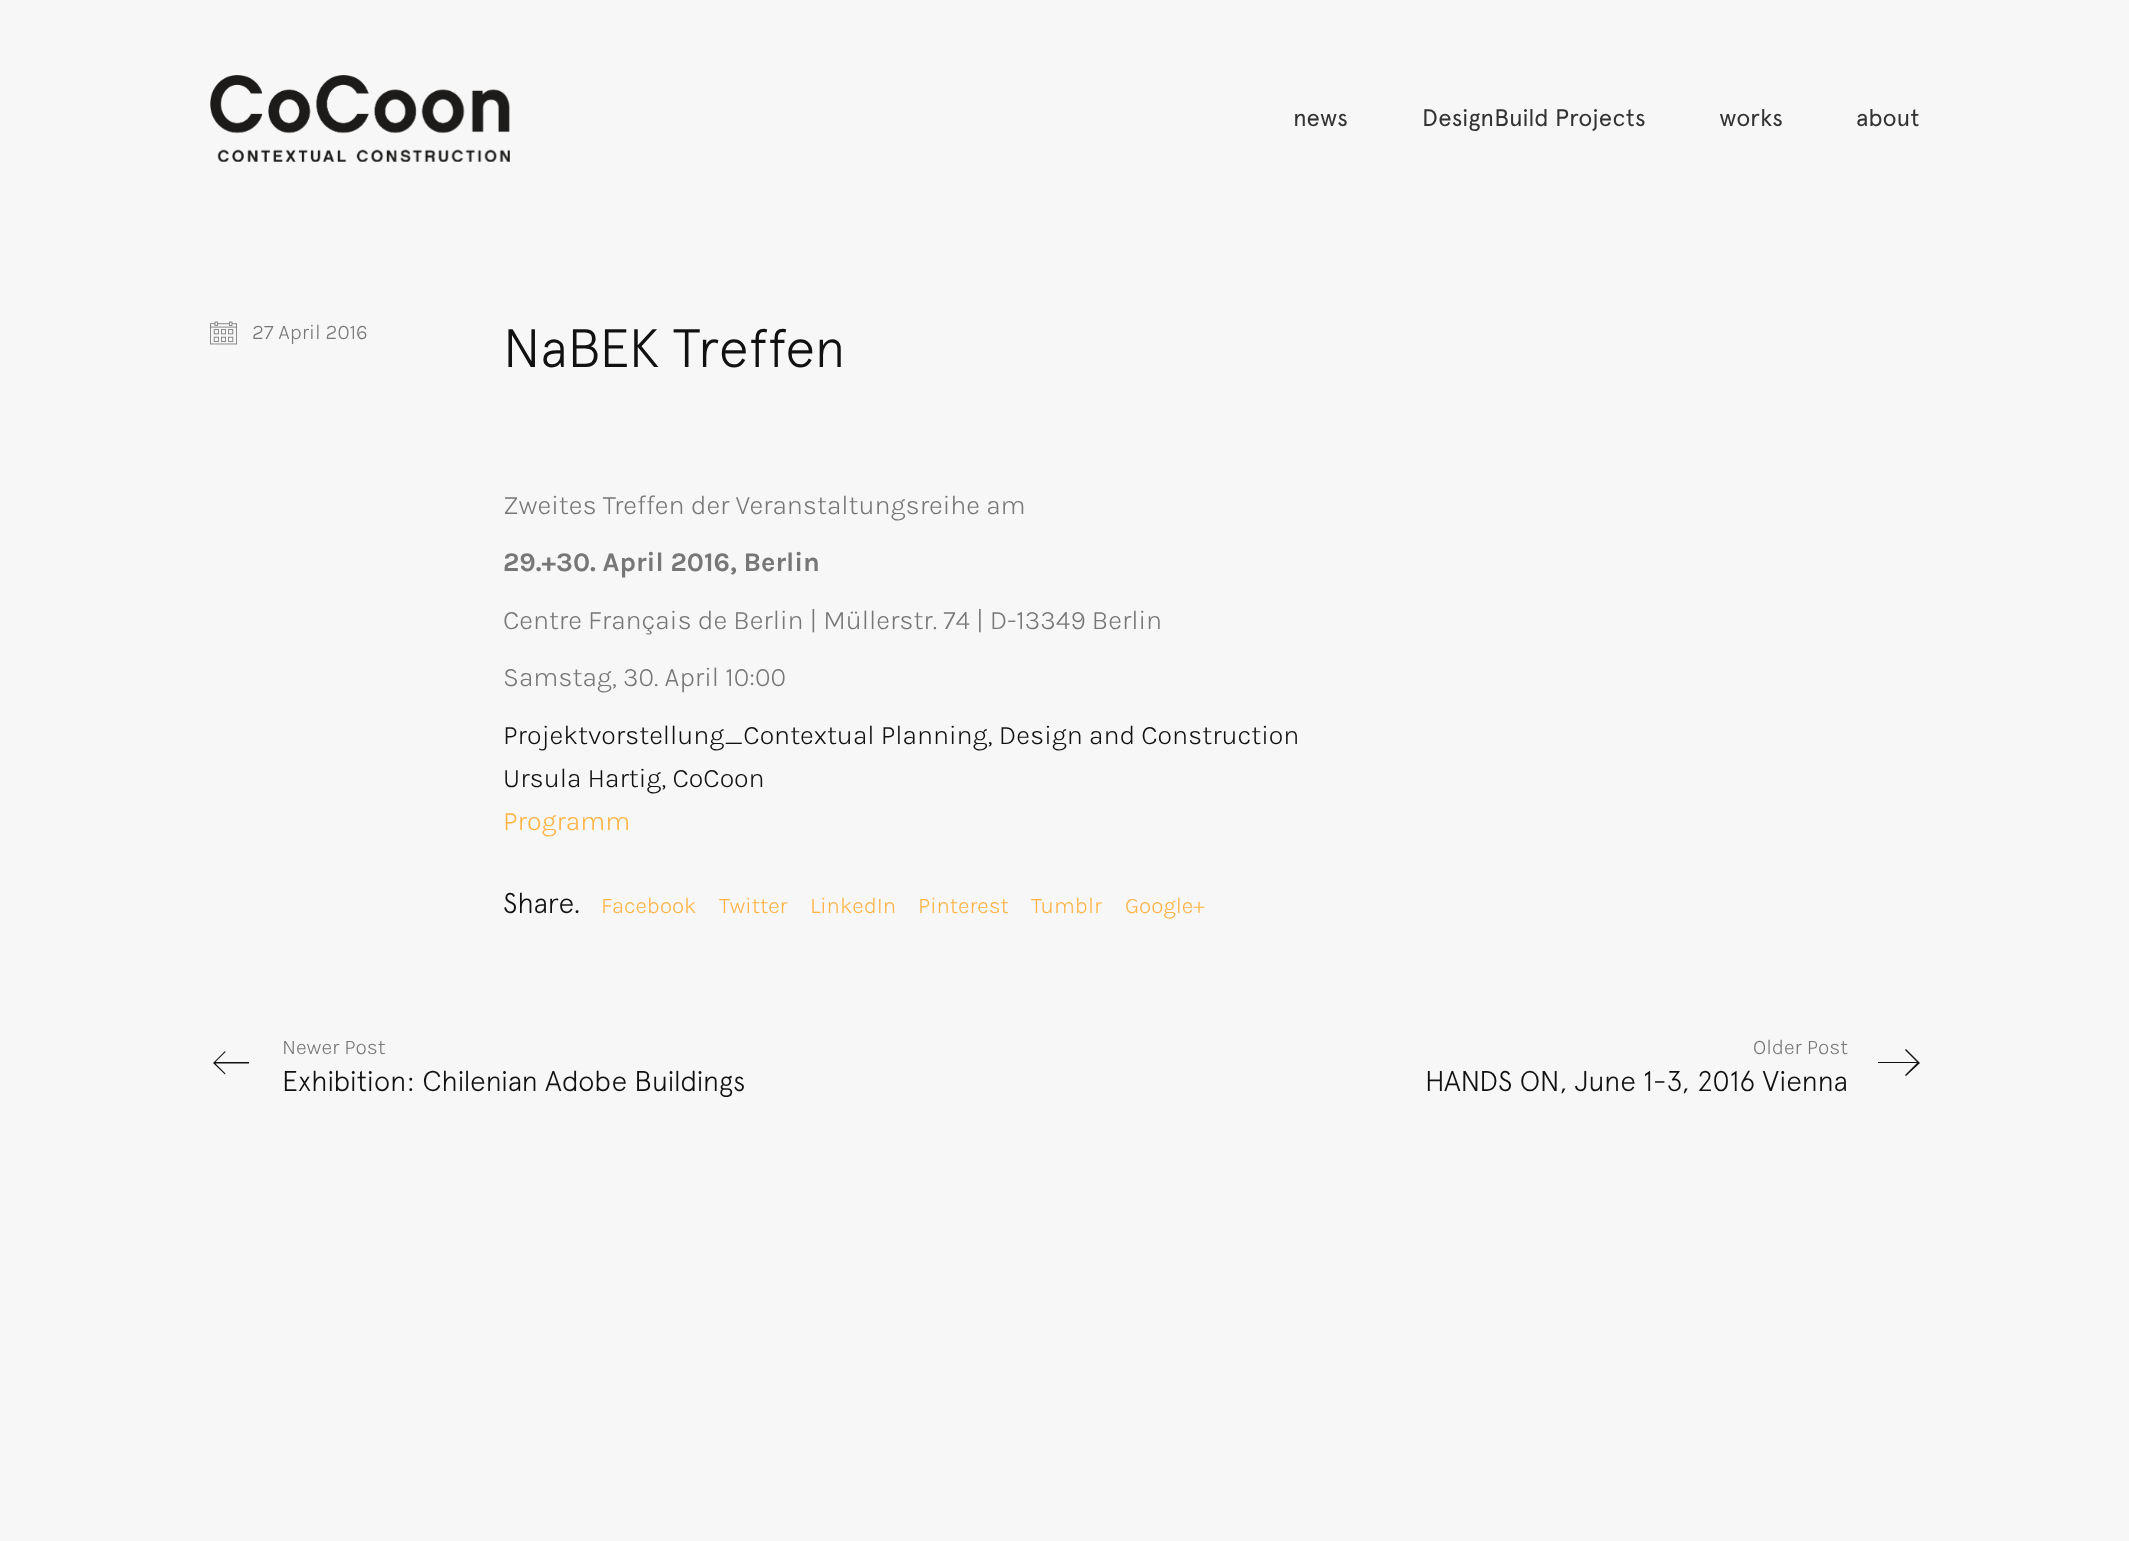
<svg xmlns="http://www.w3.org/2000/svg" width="2129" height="1541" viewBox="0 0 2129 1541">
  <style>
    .t1 { font: 24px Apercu; fill: #333; }
    .t2 { font: 300 21px Karla; fill: #777; }
    .t3 { font: 300 54px Apercu; fill: #111; }
    .t4 { font: 300 27px Karla; fill: #777; }
    .t5 { font: bold 27px Karla; fill: #777; }
    .t6 { font: 300 27px Karla; fill: #111; }
    .t7 { font: 300 27px Karla; fill: #ffb345; }
    .t8 { font: 300 28.5px Apercu; fill: #111; }
    .t9 { font: 300 22.5px Karla; fill: #ffb345; }
  </style>
  <rect width="100%" height="100%" fill="#f7f7f7"/>
  <image x="210" y="75" width="300" height="87" href="images/1.png"/>
  <text x="1293" y="126" class="t1">news</text>
  <text x="1422" y="126" class="t1">DesignBuild Projects</text>
  <text x="1719" y="126" class="t1">works</text>
  <text x="1856" y="126" class="t1">about</text>
  <image x="210" y="321" width="27" height="24" href="images/2.png"/>
  <text x="252" y="339" class="t2">27 April 2016</text>
  <text x="503" y="367" class="t3">NaBEK Treffen</text>
  <text x="503" y="514" class="t4">Zweites Treffen der Veranstaltungsreihe am</text>
  <text x="503" y="571" class="t5">29.+30. April 2016, Berlin</text>
  <text x="503" y="629" class="t4">Centre Français de Berlin | Müllerstr. 74 | D-13349 Berlin</text>
  <text x="503" y="686" class="t4">Samstag, 30. April 10:00</text>
  <text x="503" y="744" class="t6">Projektvorstellung_Contextual Planning, Design and Construction</text>
  <text x="503" y="787" class="t6">Ursula Hartig, CoCoon</text>
  <text x="503" y="830" class="t7">Programm</text>
  <text x="503" y="913" class="t8">Share.</text>
  <text x="601" y="913" class="t9">Facebook</text>
  <text x="719" y="913" class="t9">Twitter</text>
  <text x="810" y="913" class="t9">LinkedIn</text>
  <text x="918" y="913" class="t9">Pinterest</text>
  <text x="1031" y="913" class="t9">Tumblr</text>
  <text x="1125" y="913" class="t9">Google+</text>
  <path d="M249 1062H215.5L225.5 1052L225 1051L213 1063L225 1074.5L225.5 1073.5L215.5 1063.5H249Z" fill="#111"/>
  <text x="282" y="1054" class="t2">Newer Post</text>
  <text x="282" y="1091" class="t8">Exhibition: Chilenian Adobe Buildings</text>
  <text x="1753" y="1054" class="t2">Older Post</text>
  <text x="1425" y="1091" class="t8">HANDS ON, June 1-3, 2016 Vienna</text>
  <path d="M1906 1049L1905 1050L1917 1062H1878V1063H1917L1905 1075L1906 1076L1920 1063Z" fill="#111"/>
</svg>
